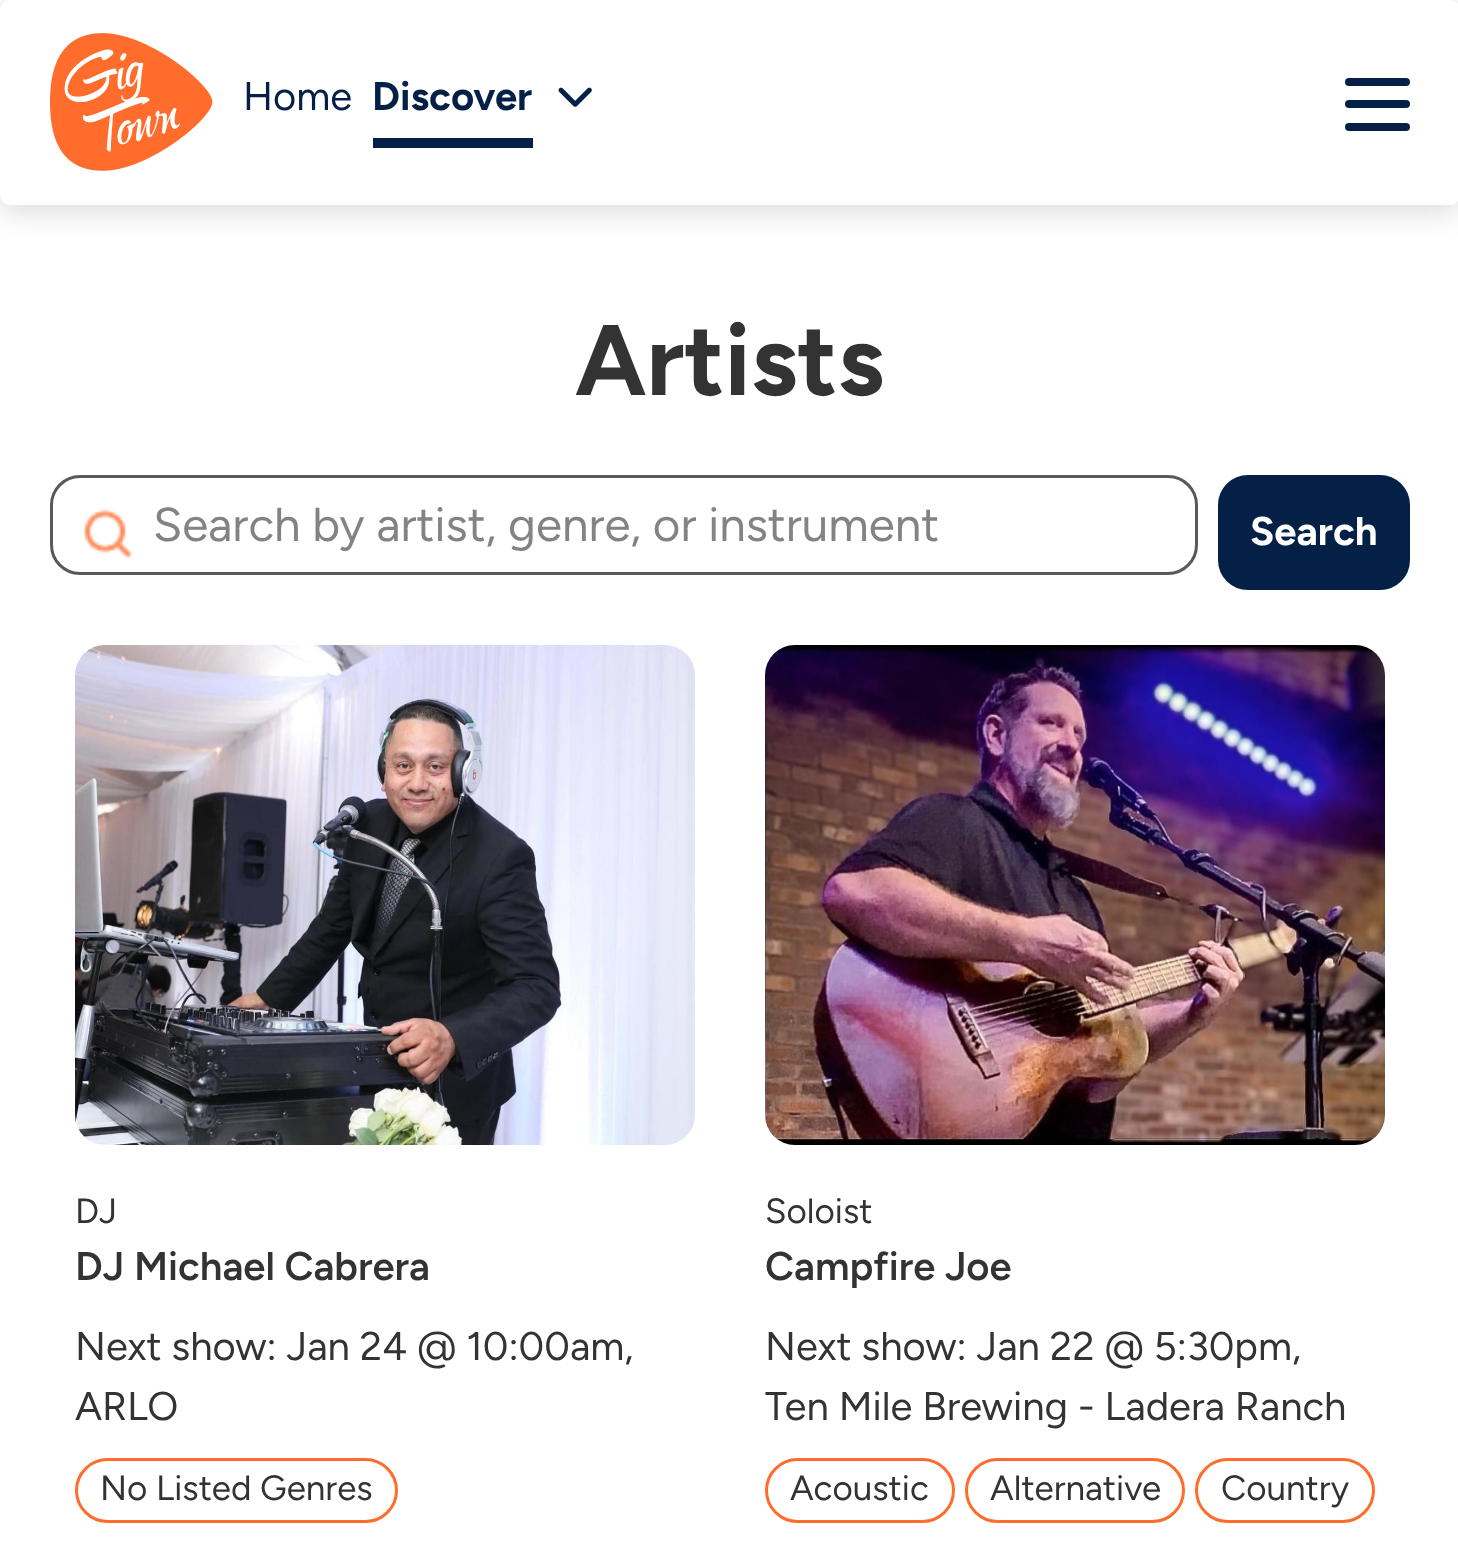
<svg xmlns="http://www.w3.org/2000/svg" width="1458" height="1542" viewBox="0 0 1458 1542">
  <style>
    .t1 { font: 40px Figtree; fill: #042046; }
    .t2 { font: bold 40px Figtree; fill: #042046; }
    .t3 { font: bold 100px Figtree; fill: #333; }
    .t4 { font: 47.5px Figtree; fill: #838383; }
    .t5 { font: bold 40px Figtree; fill: #fff; }
    .t6 { font: 35px Figtree; fill: #333; }
    .t7 { font: 600 40px Figtree; fill: #333; }
    .t8 { font: 40px Figtree; fill: #333; }
  </style>
  <rect width="100%" height="100%" fill="#fff"/>
  <rect x="0" y="5" width="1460" height="205" rx="10" fill="#00000029" filter="blur(15px)"/>
  <rect x="0" y="0" width="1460" height="205" rx="10" fill="#fff"/>
  <image x="50" y="33" width="163" height="138" href="images/1.png"/>
  <text x="243" y="110" class="t1">Home</text>
  <rect x="373" y="138" width="160" height="10" fill="#042046"/>
  <text x="372" y="110" class="t2">Discover</text>
  <image x="558" y="87" width="34" height="20" href="images/2.png"/>
  <rect x="1345" y="78" width="65" height="8" rx="4" fill="#042046"/>
  <rect x="1345" y="100" width="65" height="8" rx="4" fill="#042046"/>
  <rect x="1345" y="123" width="65" height="8" rx="4" fill="#042046"/>
  <text x="575" y="395" class="t3">Artists</text>
  <rect x="51.5" y="476.5" width="1145" height="97" rx="28.5" fill="none" stroke="#595959" stroke-width="3"/>
  <image x="84" y="509" width="49" height="50" href="images/3.png"/>
  <text x="153" y="541" class="t4">Search by artist, genre, or instrument</text>
  <rect x="1219.5" y="476.5" width="189" height="112" rx="28.5" fill="#042046" stroke="#042046" stroke-width="3"/>
  <text x="1250" y="545" class="t5">Search</text>
  <image x="75" y="645" width="620" height="500" href="images/4.png"/>
  <text x="75" y="1223" class="t6">DJ</text>
  <text x="75" y="1280" class="t7">DJ Michael Cabrera</text>
  <text x="75" y="1360" class="t8">Next show: Jan 24 @ 10:00am,</text>
  <text x="75" y="1420" class="t8">ARLO</text>
  <rect x="76.5" y="1459.5" width="320" height="62" rx="31" fill="none" stroke="#ff6c2c" stroke-width="3"/>
  <text x="100" y="1500" class="t6">No Listed Genres</text>
  <image x="765" y="645" width="620" height="500" href="images/5.png"/>
  <text x="765" y="1223" class="t6">Soloist</text>
  <text x="765" y="1280" class="t7">Campfire Joe</text>
  <text x="765" y="1360" class="t8">Next show: Jan 22 @ 5:30pm,</text>
  <text x="765" y="1420" class="t8">Ten Mile Brewing - Ladera Ranch</text>
  <rect x="766.5" y="1459.5" width="187" height="62" rx="31" fill="none" stroke="#ff6c2c" stroke-width="3"/>
  <text x="790" y="1500" class="t6">Acoustic</text>
  <rect x="966.5" y="1459.5" width="217" height="62" rx="31" fill="none" stroke="#ff6c2c" stroke-width="3"/>
  <text x="990" y="1500" class="t6">Alternative</text>
  <rect x="1196.5" y="1459.5" width="177" height="62" rx="31" fill="none" stroke="#ff6c2c" stroke-width="3"/>
  <text x="1221" y="1500" class="t6">Country</text>
</svg>
